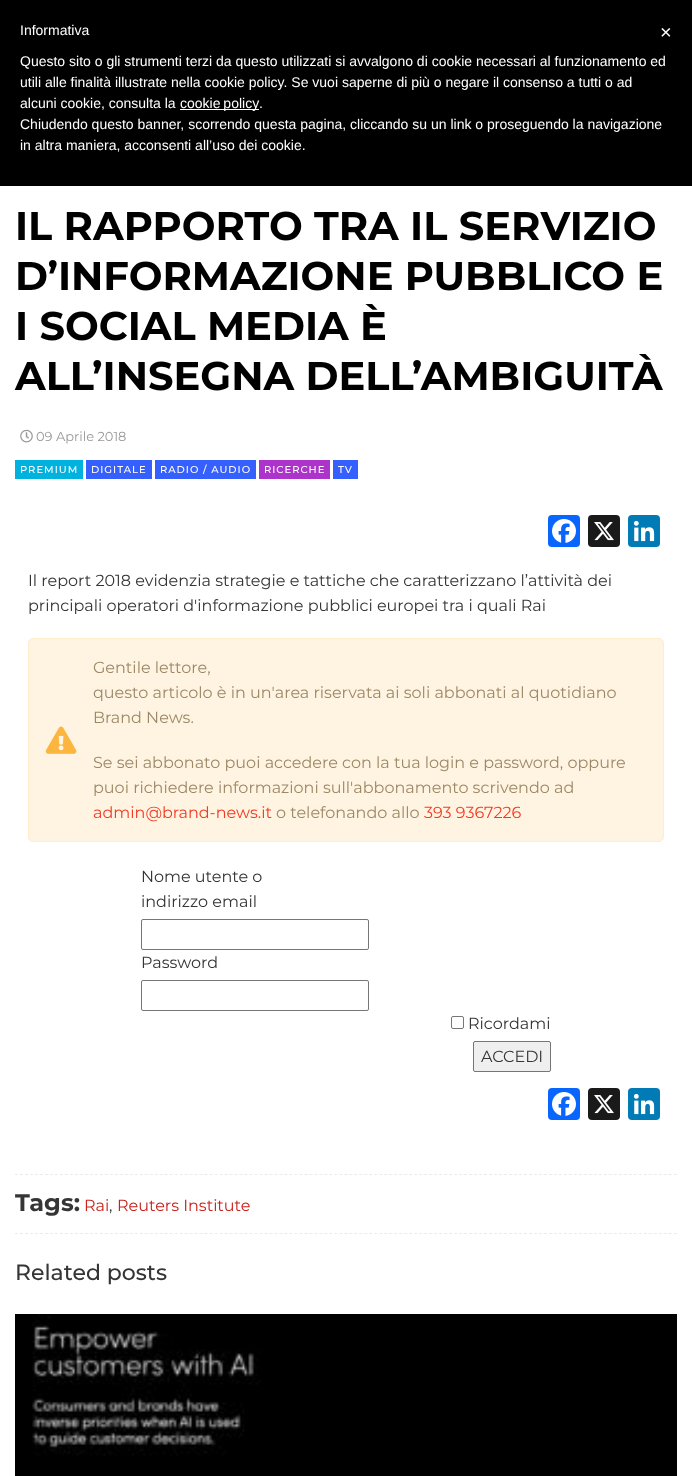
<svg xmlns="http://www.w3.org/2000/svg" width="692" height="1476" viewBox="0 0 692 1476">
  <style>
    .t1 { font: 14px Liberation Sans; fill: #fff; }
    .t2 { font: 20px Liberation Sans; fill: #fff; }
    .t3 { font: bold 40px Montserrat; fill: #000; }
    .t4 { font: 13px Montserrat; fill: #999; }
    .t5 { font: 500 10px Montserrat; letter-spacing: 1px; fill: #fff; }
    .t6 { font: 16px Montserrat; fill: #353535; }
    .t7 { font: 16px Montserrat; fill: #9d8967; }
    .t8 { font: 16px Montserrat; fill: #f33a22; }
    .t9 { font: bold 24px Montserrat; fill: #353535; }
    .t10 { font: 16px Montserrat; fill: #c6231d; }
    .t11 { font: 500 22px Montserrat; fill: #353535; }
  </style>
  <rect width="100%" height="100%" fill="#fff"/>
  <rect x="0" y="0" width="692" height="186" fill="#000"/>
  <text x="20" y="35" class="t1">Informativa</text>
  <text x="20" y="66" class="t1">Questo sito o gli strumenti terzi da questo utilizzati si avvalgono di cookie necessari al funzionamento ed</text>
  <text x="20" y="87" class="t1">utili alle finalità illustrate nella cookie policy. Se vuoi saperne di più o negare il consenso a tutti o ad</text>
  <text x="20" y="108" class="t1">alcuni cookie, consulta la</text>
  <rect x="180" y="109" width="79" height="1" fill="#fff"/>
  <text x="180" y="108" word-spacing="-1" class="t1">cookie policy</text>
  <text x="259" y="108" class="t1">.</text>
  <text x="20" y="129" class="t1">Chiudendo questo banner, scorrendo questa pagina, cliccando su un link o proseguendo la navigazione</text>
  <text x="20" y="150" class="t1">in altra maniera, acconsenti all’uso dei cookie.</text>
  <text x="660" y="39" class="t2">×</text>
  <text x="15" y="240" class="t3">IL RAPPORTO TRA IL SERVIZIO</text>
  <text x="15" y="290" class="t3">D’INFORMAZIONE PUBBLICO E</text>
  <text x="15" y="340" class="t3">I SOCIAL MEDIA È</text>
  <text x="15" y="390" class="t3">ALL’INSEGNA DELL’AMBIGUITÀ</text>
  <image x="20" y="429" width="13" height="14" href="images/1.png"/>
  <text x="36" y="441" class="t4">09 Aprile 2018</text>
  <rect x="15" y="460" width="68" height="19" fill="#01b2de"/>
  <text x="20" y="473" class="t5">PREMIUM</text>
  <rect x="86" y="460" width="66" height="19" fill="#3560fd"/>
  <text x="91" y="473" class="t5">DIGITALE</text>
  <rect x="155" y="460" width="101" height="19" fill="#3560fd"/>
  <text x="160" y="473" class="t5">RADIO / AUDIO</text>
  <rect x="259" y="460" width="71" height="19" fill="#ad34cb"/>
  <text x="264" y="473" class="t5">RICERCHE</text>
  <rect x="333" y="460" width="25" height="19" fill="#3560fd"/>
  <text x="338" y="473" class="t5">TV</text>
  <rect x="548" y="515" width="32" height="32" rx="4" fill="#0866ff"/>
  <image x="552" y="519" width="24" height="24" href="images/2.png"/>
  <rect x="588" y="515" width="32" height="32" rx="4" fill="#1a1a1a"/>
  <image x="594" y="522" width="20" height="19" href="images/3.png"/>
  <rect x="628" y="515" width="32" height="32" rx="4" fill="#007bb5"/>
  <image x="633" y="520" width="22" height="22" href="images/4.png"/>
  <text x="28" y="586" class="t6">Il report 2018 evidenzia strategie e tattiche che caratterizzano l’attività dei</text>
  <text x="28" y="611" class="t6">principali operatori d'informazione pubblici europei tra i quali Rai</text>
  <rect x="28.5" y="638.5" width="635" height="203" rx="4.5" fill="#fff4e2" stroke="#ffeccc"/>
  <text x="93" y="673" class="t7">Gentile lettore,</text>
  <text x="93" y="698" class="t7">questo articolo è in un'area riservata ai soli abbonati al quotidiano</text>
  <text x="93" y="723" class="t7">Brand News.</text>
  <image x="45" y="726" width="32" height="28" href="images/5.png"/>
  <text x="93" y="768" class="t7">Se sei abbonato puoi accedere con la tua login e password, oppure</text>
  <text x="93" y="793" class="t7">puoi richiedere informazioni sull'abbonamento scrivendo ad</text>
  <text x="93" y="818" class="t8">admin@brand-news.it</text>
  <text x="276" y="818" class="t7">o telefonando allo</text>
  <text x="424" y="818" class="t8">393 9367226</text>
  <text x="141" y="882" class="t6">Nome utente o</text>
  <text x="141" y="907" class="t6">indirizzo email</text>
  <rect x="141.5" y="919.5" width="227" height="30" rx="1.5" fill="none" stroke="#767676"/>
  <text x="141" y="968" class="t6">Password</text>
  <rect x="141.5" y="980.5" width="227" height="30" rx="1.5" fill="none" stroke="#767676"/>
  <rect x="451.5" y="1016.5" width="12" height="12" rx="1.5" fill="none" stroke="#767676"/>
  <text x="468" y="1029" class="t6">Ricordami</text>
  <rect x="473.5" y="1041.5" width="77" height="30" rx="1.5" fill="#efefef" stroke="#767676"/>
  <text x="481" y="1062" class="t6">ACCEDI</text>
  <rect x="548" y="1088" width="32" height="32" rx="4" fill="#0866ff"/>
  <image x="552" y="1092" width="24" height="24" href="images/2.png"/>
  <rect x="588" y="1088" width="32" height="32" rx="4" fill="#1a1a1a"/>
  <image x="594" y="1095" width="20" height="19" href="images/3.png"/>
  <rect x="628" y="1088" width="32" height="32" rx="4" fill="#007bb5"/>
  <image x="633" y="1093" width="22" height="22" href="images/4.png"/>
  <path d="M15 1174.5H677" fill="none" stroke="#ebebeb" stroke-dasharray="3 1.99"/>
  <path d="M15 1233.5H677" fill="none" stroke="#ebebeb" stroke-dasharray="3 1.99"/>
  <text x="15" y="1211" class="t9">Tags:</text>
  <text x="84" y="1211" class="t10">Rai</text>
  <text x="109" y="1211" class="t6">,</text>
  <text x="117" y="1211" class="t10">Reuters Institute</text>
  <text x="15" y="1280" class="t11">Related posts</text>
  <image x="15" y="1314" width="662" height="162" href="images/6.png"/>
</svg>
